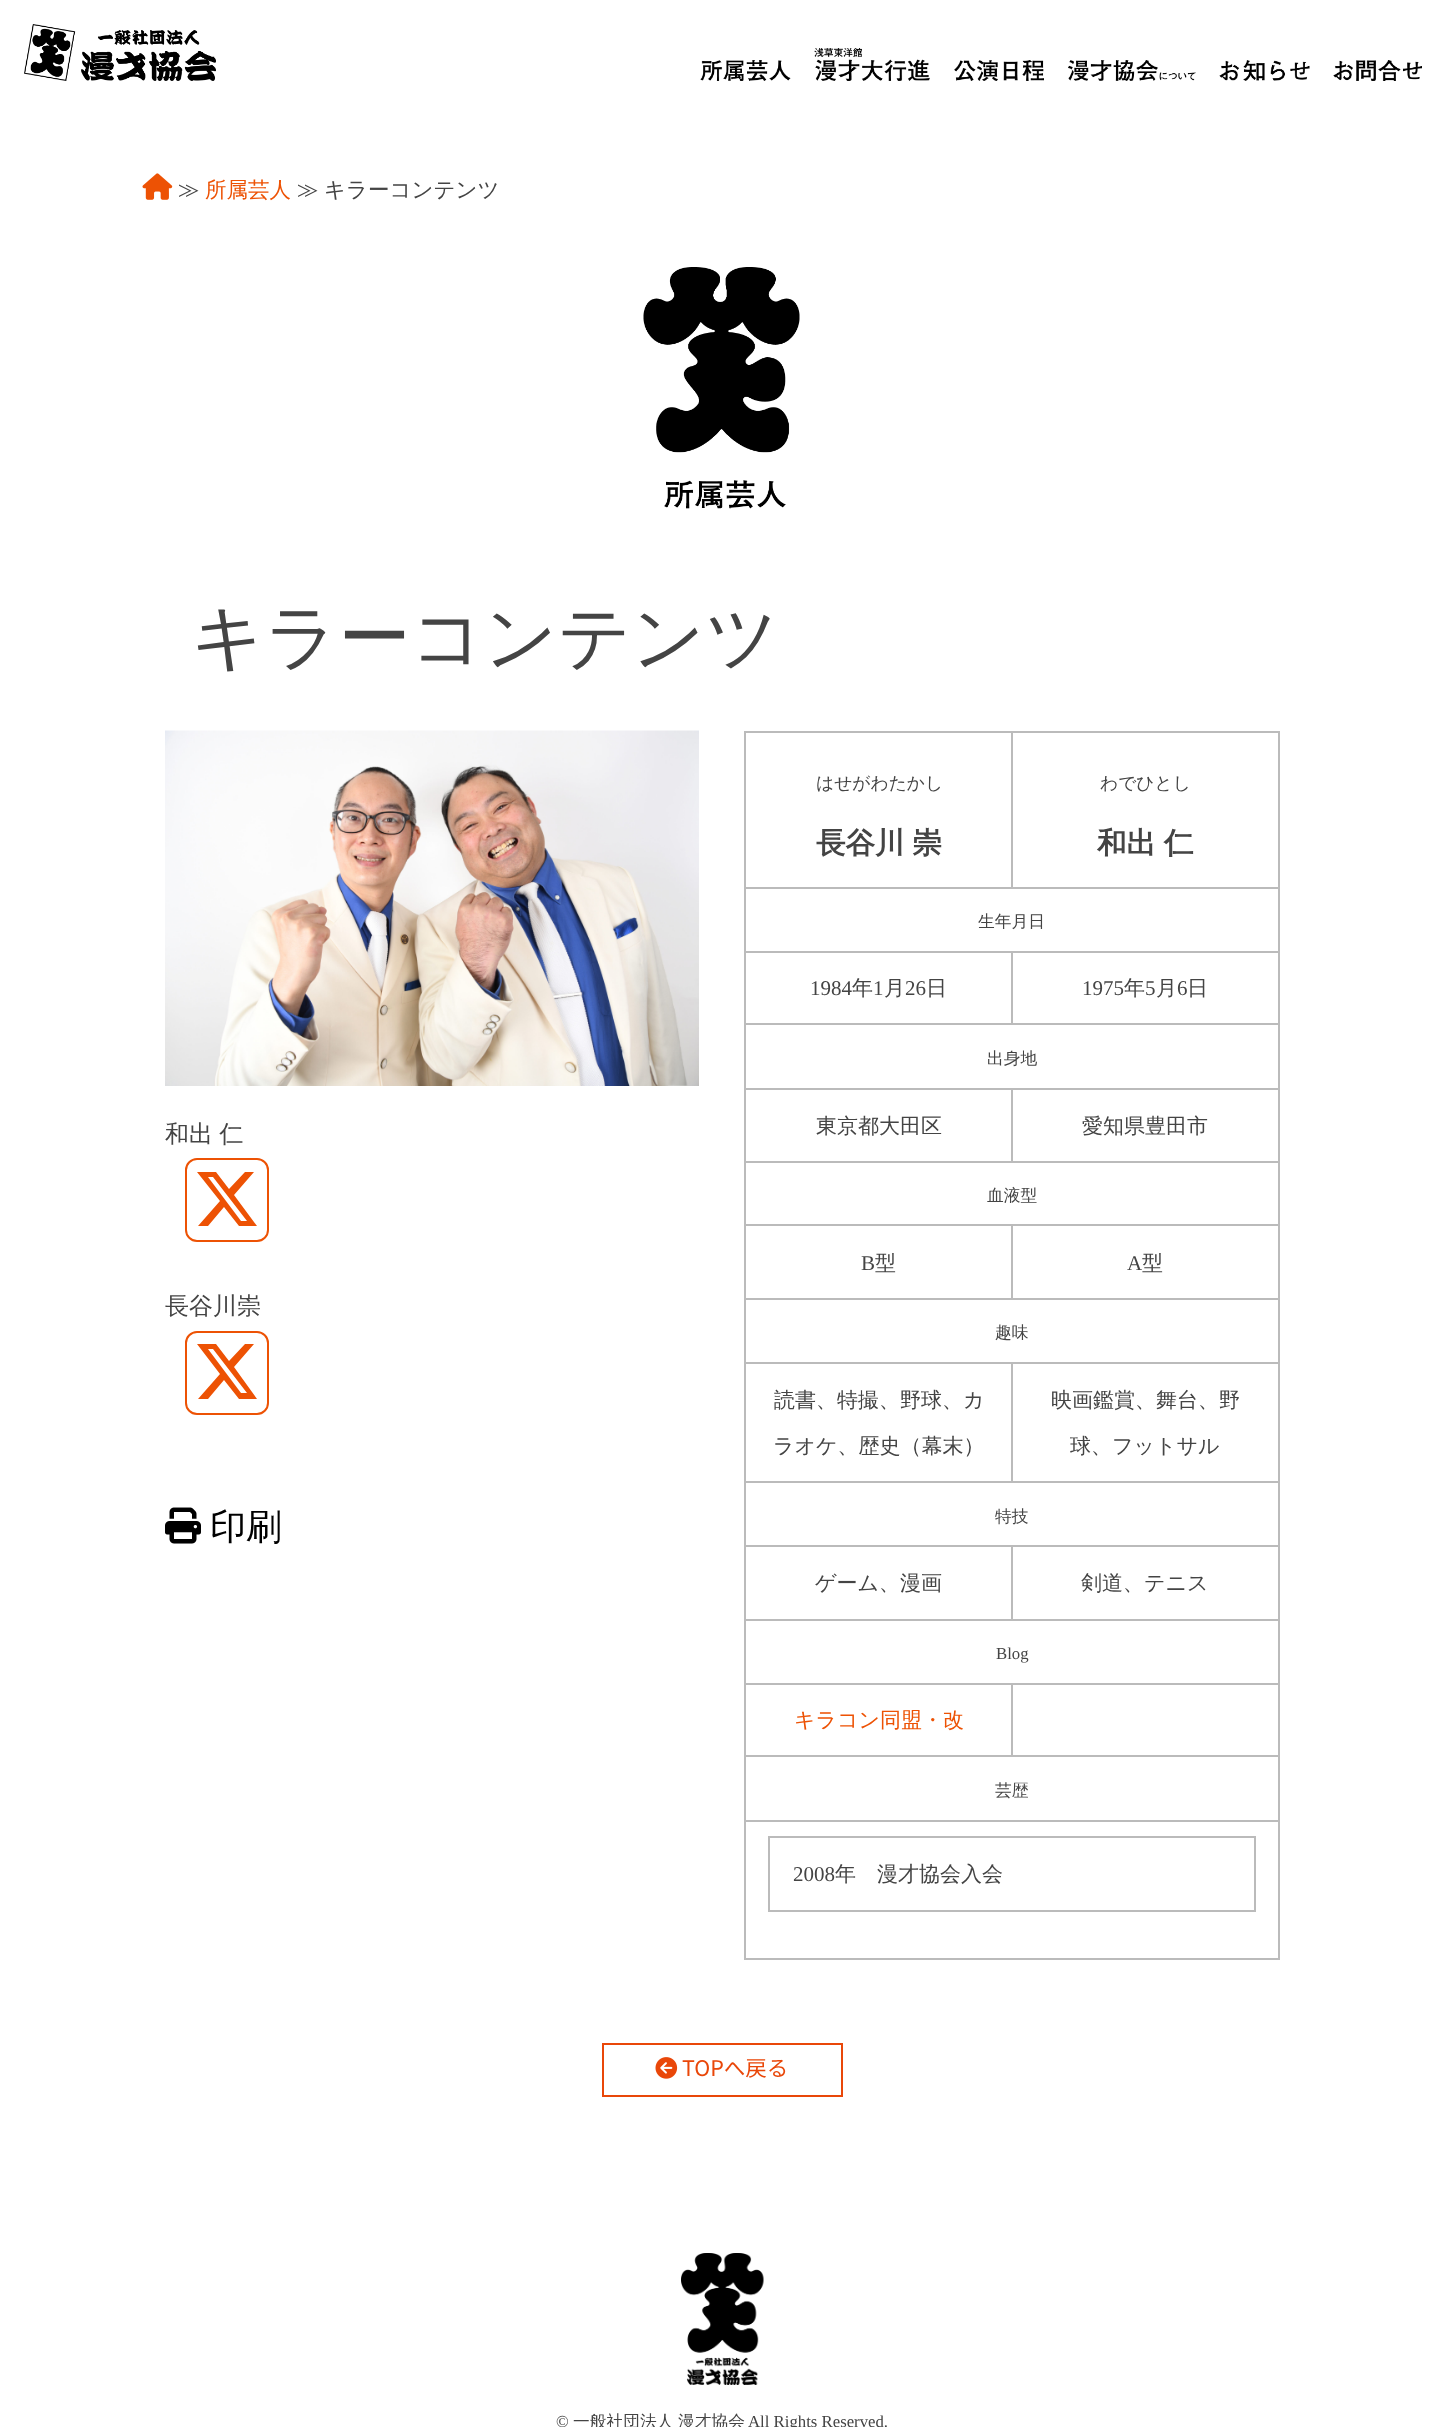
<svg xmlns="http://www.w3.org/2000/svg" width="1444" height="2427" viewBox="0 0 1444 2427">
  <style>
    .t1 { font: 500 21.5px WenQuanYi Zen Hei; fill: #444; }
    .t2 { font: 500 21.5px WenQuanYi Zen Hei; fill: #ed5204; }
    .t3 { font: 500 72px WenQuanYi Zen Hei; fill: #444; }
    .t4 { font: 500 24px WenQuanYi Zen Hei; fill: #444; }
    .t5 { font: 500 36px WenQuanYi Zen Hei; fill: #000; }
    .t6 { font: 500 17.75px WenQuanYi Zen Hei; fill: #444; }
    .t7 { font: bold 29.5px WenQuanYi Zen Hei; fill: #444; }
    .t8 { font: 500 16.75px WenQuanYi Zen Hei; fill: #444; }
    .t9 { font: 21px Liberation Serif; fill: #444; }
    .t10 { font: 500 21px WenQuanYi Zen Hei; fill: #444; }
    .t11 { font: 16.75px Liberation Serif; fill: #444; }
    .t12 { font: 500 21px WenQuanYi Zen Hei; fill: #ed5204; }
    .t13 { font: 21.5px Noto Sans JP; fill: #e94709; }
  </style>
  <rect width="100%" height="100%" fill="#fff"/>
  <image x="24" y="24" width="192" height="57" href="images/1.png"/>
  <image x="700" y="60" width="91" height="21" href="images/2.png"/>
  <image x="814" y="48" width="116" height="33" href="images/3.png"/>
  <image x="954" y="60" width="90" height="21" href="images/4.png"/>
  <image x="1068" y="60" width="128" height="21" href="images/5.png"/>
  <image x="1219" y="60" width="91" height="21" href="images/6.png"/>
  <image x="1333" y="60" width="89" height="21" href="images/7.png"/>
  <image x="142" y="173" width="31" height="27" href="images/8.png"/>
  <text x="178" y="197" class="t1">≫</text>
  <text x="205" y="197" class="t2">所属芸人</text>
  <text x="297" y="197" class="t1">≫</text>
  <text x="324" y="197" class="t1">キラーコンテンツ</text>
  <image x="643" y="267" width="157" height="242" href="images/9.png"/>
  <text x="191" y="662" class="t3">キラーコンテンツ</text>
  <image x="165" y="730" width="534" height="356" href="images/10.png"/>
  <text x="165" y="1142" word-spacing="-1" class="t4">和出 仁</text>
  <rect x="186" y="1159" width="82" height="82" rx="11" fill="none" stroke="#ed5204" stroke-width="2"/>
  <path d="M245 1172H254H245H254L234 1195L257 1226H239L224 1207L208 1226H198L220 1201L197 1172H216L229 1189ZM241 1221H247H241H247L213 1177H208Z" fill="#ed5204"/>
  <text x="165" y="1314" class="t4">長谷川崇</text>
  <rect x="186" y="1332" width="82" height="82" rx="11" fill="none" stroke="#ed5204" stroke-width="2"/>
  <path d="M245 1344H254H245H254L234 1367L257 1399H239L224 1380L208 1399H198L220 1374L197 1344H216L229 1361ZM241 1393H247H241H247L213 1349H208Z" fill="#ed5204"/>
  <image x="165" y="1507" width="36" height="37" href="images/11.png"/>
  <text x="210" y="1539" class="t5">印刷</text>
  <rect x="1011" y="731" width="269" height="2" fill="#bbb"/>
  <rect x="744" y="887" width="536" height="2" fill="#bbb"/>
  <rect x="1011" y="731" width="2" height="157" fill="#bbb"/>
  <rect x="744" y="731" width="269" height="2" fill="#bbb"/>
  <rect x="1011" y="951" width="269" height="2" fill="#bbb"/>
  <rect x="744" y="1023" width="536" height="2" fill="#bbb"/>
  <rect x="1011" y="951" width="2" height="74" fill="#bbb"/>
  <rect x="744" y="951" width="269" height="2" fill="#bbb"/>
  <rect x="1011" y="1088" width="269" height="2" fill="#bbb"/>
  <rect x="744" y="1161" width="536" height="2" fill="#bbb"/>
  <rect x="1011" y="1088" width="2" height="75" fill="#bbb"/>
  <rect x="744" y="1088" width="269" height="2" fill="#bbb"/>
  <rect x="1011" y="1224" width="269" height="2" fill="#bbb"/>
  <rect x="744" y="1298" width="536" height="2" fill="#bbb"/>
  <rect x="1011" y="1224" width="2" height="75" fill="#bbb"/>
  <rect x="744" y="1224" width="269" height="2" fill="#bbb"/>
  <rect x="1011" y="1362" width="269" height="2" fill="#bbb"/>
  <rect x="744" y="1481" width="536" height="2" fill="#bbb"/>
  <rect x="1011" y="1362" width="2" height="120" fill="#bbb"/>
  <rect x="744" y="1362" width="269" height="2" fill="#bbb"/>
  <rect x="1011" y="1545" width="269" height="2" fill="#bbb"/>
  <rect x="744" y="1619" width="536" height="2" fill="#bbb"/>
  <rect x="1011" y="1545" width="2" height="75" fill="#bbb"/>
  <rect x="744" y="1545" width="269" height="2" fill="#bbb"/>
  <rect x="1011" y="1683" width="269" height="2" fill="#bbb"/>
  <rect x="744" y="1755" width="536" height="2" fill="#bbb"/>
  <rect x="1011" y="1683" width="2" height="74" fill="#bbb"/>
  <rect x="744" y="1683" width="269" height="2" fill="#bbb"/>
  <rect x="744" y="1820" width="536" height="2" fill="#bbb"/>
  <rect x="1278" y="1820" width="2" height="139" fill="#bbb"/>
  <rect x="744" y="1958" width="536" height="2" fill="#bbb"/>
  <rect x="744" y="1820" width="2" height="139" fill="#bbb"/>
  <rect x="744" y="1755" width="2" height="66" fill="#bbb"/>
  <rect x="744" y="1683" width="2" height="74" fill="#bbb"/>
  <rect x="744" y="1619" width="2" height="66" fill="#bbb"/>
  <rect x="744" y="1545" width="2" height="75" fill="#bbb"/>
  <rect x="744" y="1481" width="2" height="66" fill="#bbb"/>
  <rect x="744" y="1362" width="2" height="120" fill="#bbb"/>
  <rect x="744" y="1298" width="2" height="66" fill="#bbb"/>
  <rect x="744" y="1224" width="2" height="75" fill="#bbb"/>
  <rect x="744" y="1161" width="2" height="65" fill="#bbb"/>
  <rect x="744" y="1088" width="2" height="75" fill="#bbb"/>
  <rect x="744" y="1023" width="2" height="66" fill="#bbb"/>
  <rect x="744" y="951" width="2" height="74" fill="#bbb"/>
  <rect x="744" y="887" width="2" height="66" fill="#bbb"/>
  <rect x="744" y="731" width="2" height="157" fill="#bbb"/>
  <text x="816" y="789" class="t6">はせがわたかし</text>
  <text x="816" y="853" word-spacing="-1" class="t7">長谷川 崇</text>
  <rect x="1278" y="1755" width="2" height="66" fill="#bbb"/>
  <rect x="1278" y="1683" width="2" height="74" fill="#bbb"/>
  <rect x="1278" y="1619" width="2" height="66" fill="#bbb"/>
  <rect x="1278" y="1545" width="2" height="75" fill="#bbb"/>
  <rect x="1278" y="1481" width="2" height="66" fill="#bbb"/>
  <rect x="1278" y="1362" width="2" height="120" fill="#bbb"/>
  <rect x="1278" y="1298" width="2" height="66" fill="#bbb"/>
  <rect x="1278" y="1224" width="2" height="75" fill="#bbb"/>
  <rect x="1278" y="1161" width="2" height="65" fill="#bbb"/>
  <rect x="1278" y="1088" width="2" height="75" fill="#bbb"/>
  <rect x="1278" y="1023" width="2" height="66" fill="#bbb"/>
  <rect x="1278" y="951" width="2" height="74" fill="#bbb"/>
  <rect x="1278" y="887" width="2" height="66" fill="#bbb"/>
  <rect x="1278" y="731" width="2" height="157" fill="#bbb"/>
  <text x="1100" y="789" class="t6">わでひとし</text>
  <text x="1097" y="853" word-spacing="-1" class="t7">和出 仁</text>
  <text x="978" y="927" class="t8">生年月日</text>
  <text x="810" y="995" class="t9">1984</text>
  <text x="852" y="995" class="t10">年</text>
  <text x="873" y="995" class="t9">1</text>
  <text x="884" y="995" class="t10">月</text>
  <text x="905" y="995" class="t9">26</text>
  <text x="926" y="995" class="t10">日</text>
  <text x="1082" y="995" class="t9">1975</text>
  <text x="1124" y="995" class="t10">年</text>
  <text x="1145" y="995" class="t9">5</text>
  <text x="1156" y="995" class="t10">月</text>
  <text x="1177" y="995" class="t9">6</text>
  <text x="1187" y="995" class="t10">日</text>
  <text x="987" y="1064" class="t8">出身地</text>
  <text x="816" y="1133" class="t10">東京都大田区</text>
  <text x="1082" y="1133" class="t10">愛知県豊田市</text>
  <text x="987" y="1201" class="t8">血液型</text>
  <text x="861" y="1270" class="t9">B</text>
  <text x="875" y="1270" class="t10">型</text>
  <text x="1127" y="1270" class="t9">A</text>
  <text x="1142" y="1270" class="t10">型</text>
  <text x="995" y="1338" class="t8">趣味</text>
  <text x="774" y="1407" class="t10">読書、特撮、野球、カ</text>
  <text x="773" y="1453" class="t10">ラオケ、歴史（幕末）</text>
  <text x="1051" y="1407" class="t10">映画鑑賞、舞台、野</text>
  <text x="1070" y="1453" class="t10">球、フットサル</text>
  <text x="995" y="1522" class="t8">特技</text>
  <text x="815" y="1590" class="t10">ゲーム、漫画</text>
  <text x="1081" y="1590" class="t10">剣道、テニス</text>
  <text x="996" y="1659" class="t11">Blog</text>
  <text x="794" y="1727" class="t12">キラコン同盟・改</text>
  <text x="995" y="1796" class="t8">芸歴</text>
  <rect x="768" y="1836" width="488" height="2" fill="#bbb"/>
  <rect x="1254" y="1836" width="2" height="75" fill="#bbb"/>
  <rect x="768" y="1910" width="488" height="2" fill="#bbb"/>
  <rect x="768" y="1836" width="2" height="75" fill="#bbb"/>
  <text x="793" y="1881" class="t9">2008</text>
  <text x="835" y="1881" class="t10">年　漫才協会入会</text>
  <rect x="603" y="2044" width="239" height="52" fill="none" stroke="#e94709" stroke-width="2"/>
  <image x="655" y="2057" width="23" height="22" href="images/12.png"/>
  <text x="682" y="2076" class="t13">TOPへ戻る</text>
  <image x="681" y="2253" width="83" height="132" href="images/13.png"/>
  <text x="556" y="2427" class="t11">©</text>
  <text x="573" y="2427" class="t8">一般社団法人</text>
  <text x="678" y="2427" class="t8">漫才協会</text>
  <text x="748" y="2427" class="t11">All Rights Reserved.</text>
</svg>
